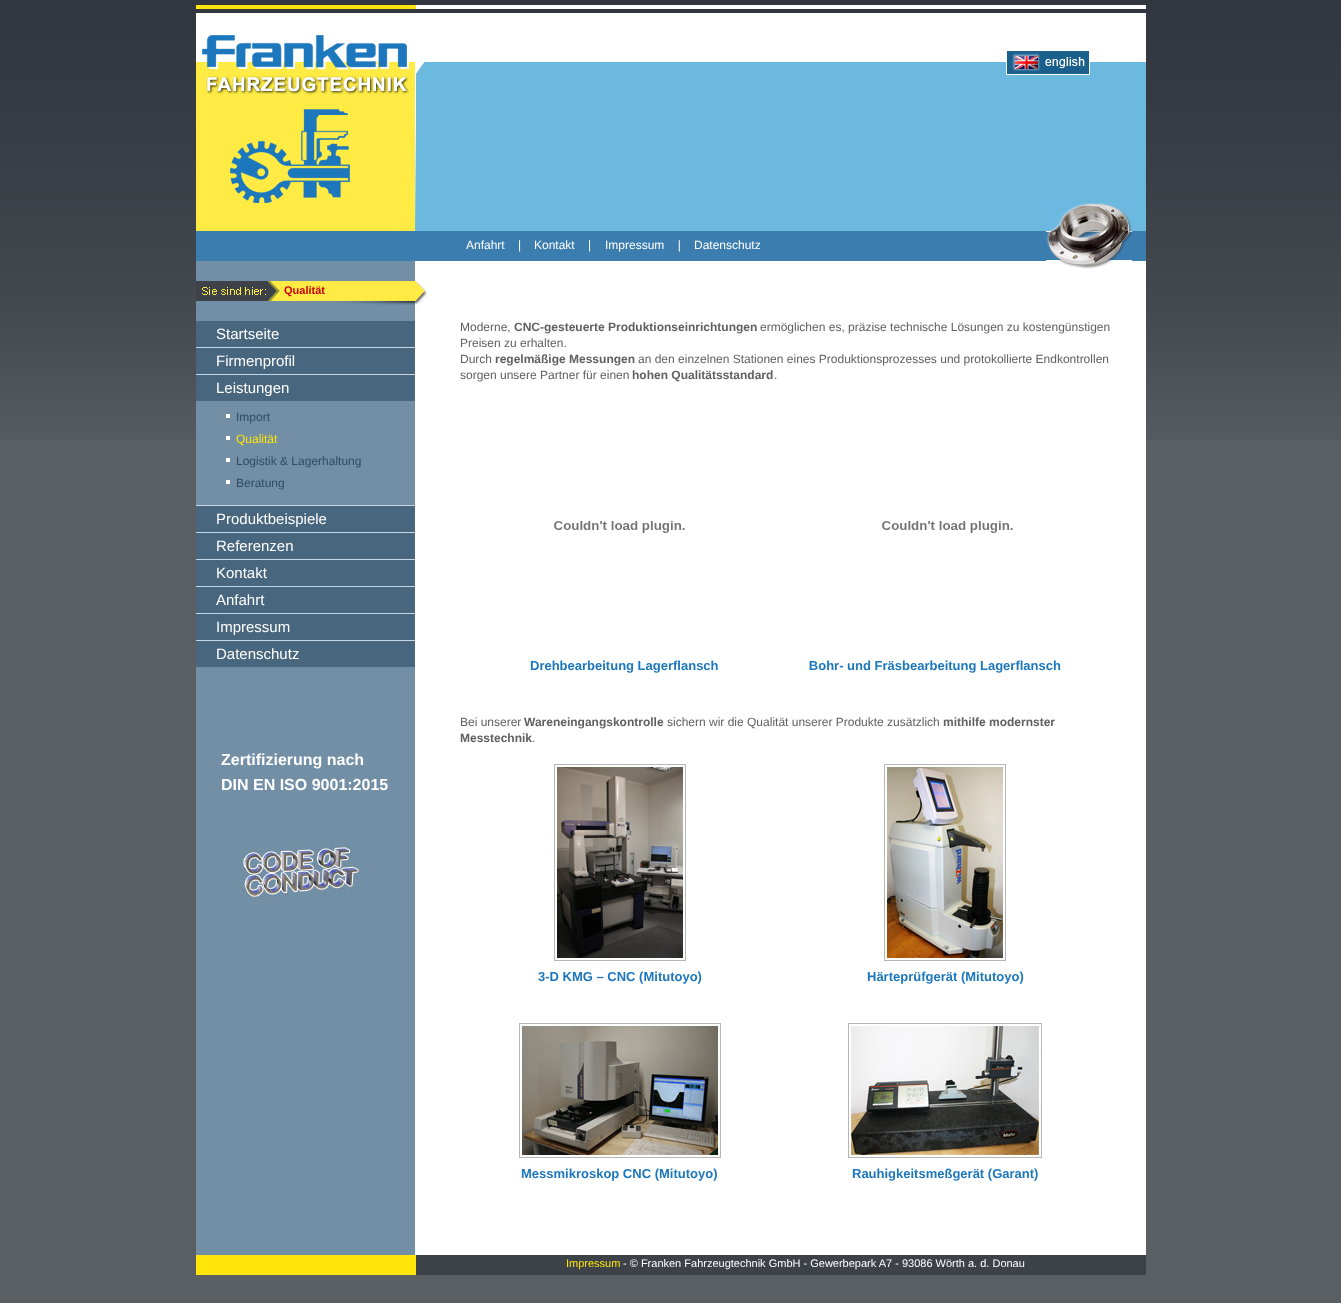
<svg xmlns="http://www.w3.org/2000/svg" width="1341" height="1303" viewBox="0 0 1341 1303">
  <style>
    .t1 { font: 12px Liberation Sans; fill: #fff; }
    .t2 { font: bold 11px Liberation Sans; fill: #c8000e; }
    .t3 { font: 15px Liberation Sans; fill: #fff; }
    .t4 { font: 12px Liberation Sans; fill: #304c62; }
    .t5 { font: 12px Liberation Sans; fill: #ffe509; }
    .t6 { font: bold 16px Liberation Sans; fill: #fff; }
    .t7 { font: 12px Liberation Sans; fill: #606060; }
    .t8 { font: bold 12px Liberation Sans; fill: #606060; }
    .t9 { font: bold 13px Liberation Sans; fill: #1c77bd; }
    .t10 { font: 11px Liberation Sans; fill: #ffe509; }
    .t11 { font: 11px Liberation Sans; fill: #fff; }
  </style>
  <rect width="100%" height="100%" fill="#595f63"/>
  <image x="0" y="0" width="1341" height="440" href="images/1.png"/>
  <rect x="416" y="5" width="730" height="4" fill="#fff"/>
  <rect x="196" y="5" width="220" height="4" fill="#ffe509"/>
  <rect x="415" y="62" width="731" height="169" fill="#6cb9e0"/>
  <rect x="196" y="13" width="950" height="49" fill="#fff"/>
  <image x="196" y="35" width="219" height="196" href="images/2.png"/>
  <image x="415" y="62" width="10" height="168" href="images/3.png"/>
  <image x="1006" y="51" width="84" height="24" href="images/4.png"/>
  <rect x="196" y="231" width="950" height="30" fill="#3c7daf"/>
  <text x="466" y="249" class="t1">Anfahrt</text>
  <text x="518" y="249" class="t1">|</text>
  <text x="534" y="249" class="t1">Kontakt</text>
  <text x="588" y="249" class="t1">|</text>
  <text x="605" y="249" class="t1" xml:space="preserve">Impressum    |</text>
  <text x="694" y="249" class="t1">Datenschutz</text>
  <rect x="415" y="261" width="731" height="994" fill="#fff"/>
  <image x="1046" y="203" width="86" height="66" href="images/5.png"/>
  <rect x="196" y="261" width="219" height="994" fill="#728fa5"/>
  <image x="196" y="281" width="231" height="24" href="images/6.png"/>
  <text x="284" y="294" class="t2">Qualität</text>
  <rect x="196" y="321" width="219" height="26" fill="#48667d"/>
  <text x="216" y="339" class="t3">Startseite</text>
  <rect x="196" y="347" width="219" height="1" fill="#c6d8e6"/>
  <rect x="196" y="348" width="219" height="26" fill="#48667d"/>
  <text x="216" y="366" class="t3">Firmenprofil</text>
  <rect x="196" y="374" width="219" height="1" fill="#c6d8e6"/>
  <rect x="196" y="375" width="219" height="26" fill="#48667d"/>
  <text x="216" y="393" class="t3">Leistungen</text>
  <rect x="226" y="414" width="4" height="4" fill="#fff"/>
  <text x="236" y="421" class="t4">Import</text>
  <rect x="226" y="436" width="4" height="4" fill="#fff"/>
  <text x="236" y="443" class="t5">Qualität</text>
  <rect x="226" y="458" width="4" height="4" fill="#fff"/>
  <text x="236" y="465" class="t4">Logistik &amp; Lagerhaltung</text>
  <rect x="226" y="480" width="4" height="4" fill="#fff"/>
  <text x="236" y="487" class="t4">Beratung</text>
  <rect x="196" y="505" width="219" height="1" fill="#c6d8e6"/>
  <rect x="196" y="506" width="219" height="26" fill="#48667d"/>
  <text x="216" y="524" class="t3">Produktbeispiele</text>
  <rect x="196" y="532" width="219" height="1" fill="#c6d8e6"/>
  <rect x="196" y="533" width="219" height="26" fill="#48667d"/>
  <text x="216" y="551" class="t3">Referenzen</text>
  <rect x="196" y="559" width="219" height="1" fill="#c6d8e6"/>
  <rect x="196" y="560" width="219" height="26" fill="#48667d"/>
  <text x="216" y="578" class="t3">Kontakt</text>
  <rect x="196" y="586" width="219" height="1" fill="#c6d8e6"/>
  <rect x="196" y="587" width="219" height="26" fill="#48667d"/>
  <text x="216" y="605" class="t3">Anfahrt</text>
  <rect x="196" y="613" width="219" height="1" fill="#c6d8e6"/>
  <rect x="196" y="614" width="219" height="26" fill="#48667d"/>
  <text x="216" y="632" class="t3">Impressum</text>
  <rect x="196" y="640" width="219" height="1" fill="#c6d8e6"/>
  <rect x="196" y="641" width="219" height="26" fill="#48667d"/>
  <text x="216" y="659" class="t3">Datenschutz</text>
  <text x="221" y="765" class="t6">Zertifizierung nach</text>
  <text x="221" y="790" class="t6">DIN EN ISO 9001:2015</text>
  <image x="241" y="844" width="120" height="56" href="images/7.png"/>
  <text x="460" y="331" class="t7">Moderne,</text>
  <text x="514" y="331" class="t8">CNC-gesteuerte Produktionseinrichtungen</text>
  <text x="760" y="331" class="t7">ermöglichen es, präzise technische Lösungen zu kostengünstigen</text>
  <text x="460" y="347" class="t7">Preisen zu erhalten.</text>
  <text x="460" y="363" class="t7">Durch</text>
  <text x="495" y="363" class="t8">regelmäßige Messungen</text>
  <text x="638" y="363" class="t7">an den einzelnen Stationen eines Produktionsprozesses und protokollierte Endkontrollen</text>
  <text x="460" y="379" class="t7">sorgen unsere Partner für einen</text>
  <text x="632" y="379" class="t8">hohen Qualitätsstandard</text>
  <text x="774" y="379" class="t7">.</text>
  <image x="554" y="521" width="131" height="12" href="images/8.png"/>
  <image x="882" y="521" width="131" height="12" href="images/8.png"/>
  <text x="530" y="670" class="t9" xml:space="preserve">Drehbearbeitung Lagerflansch                         Bohr- und Fräsbearbeitung Lagerflansch</text>
  <text x="460" y="726" class="t7">Bei unserer</text>
  <text x="524" y="726" class="t8">Wareneingangskontrolle</text>
  <text x="667" y="726" class="t7">sichern wir die Qualität unserer Produkte zusätzlich</text>
  <text x="943" y="726" class="t8">mithilfe modernster</text>
  <text x="460" y="742" class="t8">Messtechnik</text>
  <text x="532" y="742" class="t7">.</text>
  <rect x="554.5" y="764.5" width="131" height="196" fill="none" stroke="#b6b6b6"/>
  <image x="555" y="765" width="128" height="193" href="images/9.png"/>
  <text x="538" y="981" class="t9">3-D KMG – CNC (Mitutoyo)</text>
  <rect x="884.5" y="764.5" width="121" height="196" fill="none" stroke="#b6b6b6"/>
  <image x="885" y="765" width="120" height="195" href="images/10.png"/>
  <text x="867" y="981" class="t9">Härteprüfgerät (Mitutoyo)</text>
  <rect x="519.5" y="1023.5" width="201" height="134" fill="none" stroke="#b6b6b6"/>
  <image x="520" y="1024" width="200" height="133" href="images/11.png"/>
  <text x="521" y="1178" class="t9">Messmikroskop CNC (Mitutoyo)</text>
  <rect x="848.5" y="1023.5" width="193" height="134" fill="none" stroke="#b6b6b6"/>
  <image x="849" y="1024" width="192" height="133" href="images/12.png"/>
  <text x="852" y="1178" class="t9">Rauhigkeitsmeßgerät (Garant)</text>
  <rect x="416" y="1255" width="730" height="20" fill="#3d4249"/>
  <rect x="196" y="1255" width="220" height="20" fill="#ffe509"/>
  <text x="566" y="1267" class="t10">Impressum</text>
  <text x="623" y="1267" class="t11">- © Franken Fahrzeugtechnik GmbH - Gewerbepark A7 - 93086 Wörth a. d. Donau</text>
</svg>
